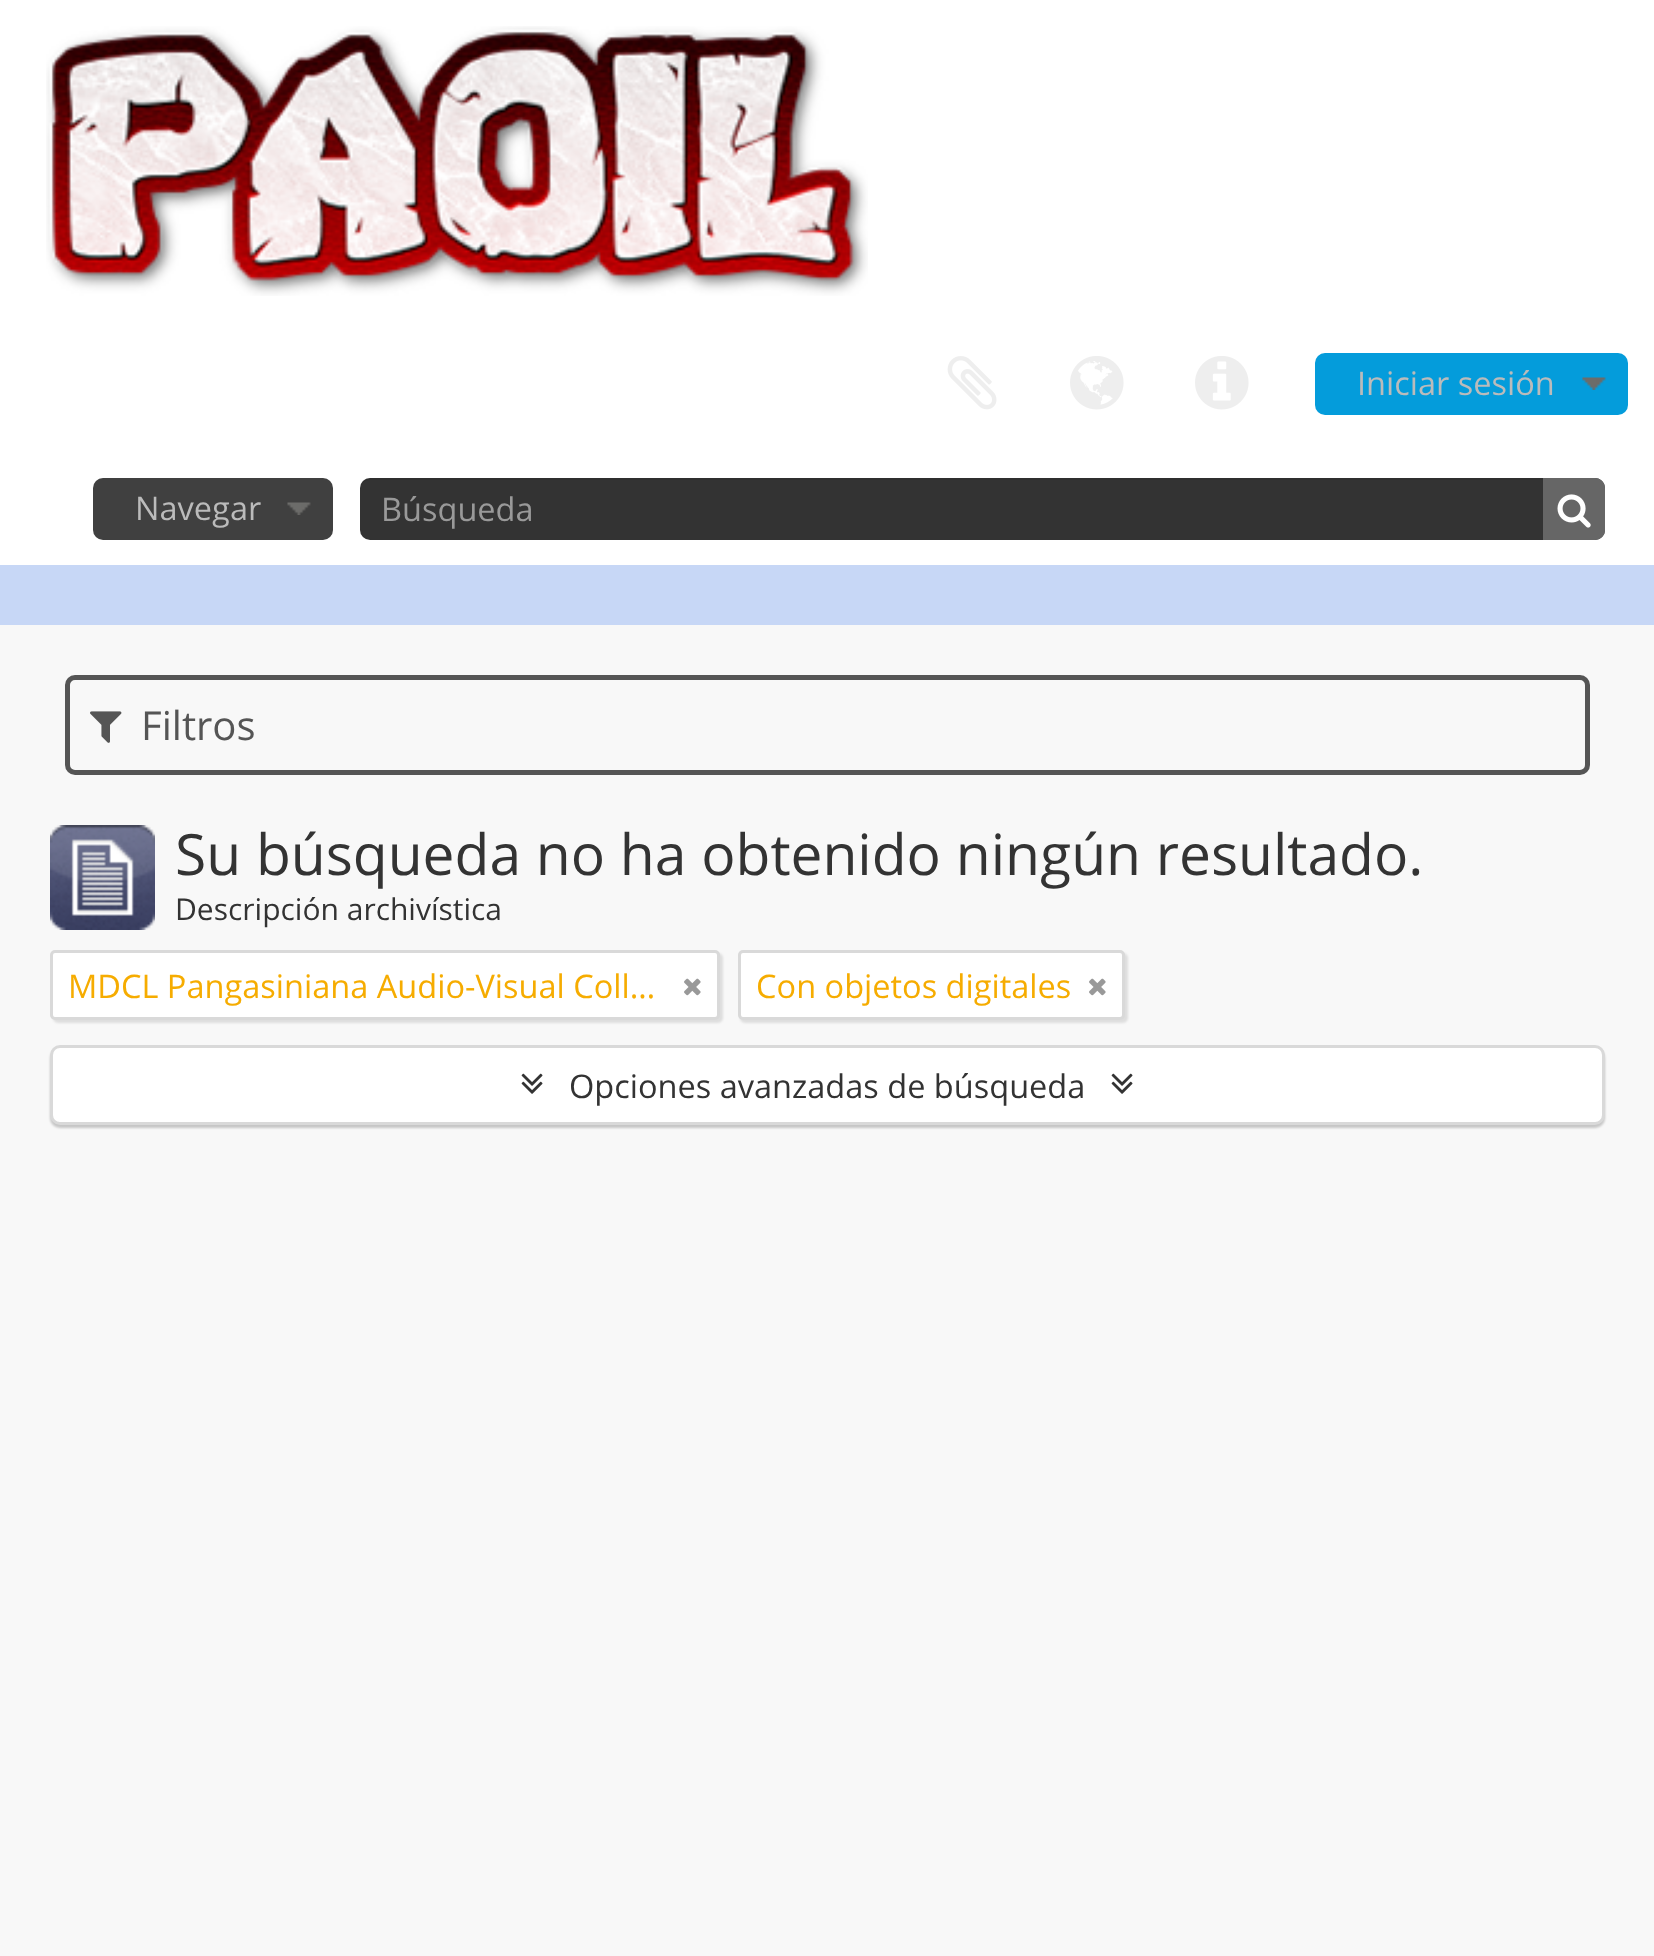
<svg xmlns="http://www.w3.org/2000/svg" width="1654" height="1956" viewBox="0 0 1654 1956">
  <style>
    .t1 { font: 32.5px Open Sans; fill: #bbb; }
    .t2 { font: 32.5px Open Sans; fill: #999; }
    .t3 { font: 40px Open Sans; fill: #555; }
    .t4 { font: 56.9px Open Sans; fill: #333; }
    .t5 { font: 30px Open Sans; fill: #333; }
    .t6 { font: 32.5px Open Sans; fill: #f6ac00; }
    .t7 { font: 32.5px Open Sans; fill: #333; }
  </style>
  <rect width="100%" height="100%" fill="#f8f8f8"/>
  <rect x="0" y="0" width="1654" height="565" fill="#fff"/>
  <image x="46" y="26" width="822" height="270" href="images/1.png"/>
  <image x="947" y="356" width="50" height="54" href="images/2.png"/>
  <image x="1070" y="356" width="54" height="54" href="images/3.png"/>
  <image x="1195" y="356" width="54" height="54" href="images/4.png"/>
  <rect x="1315" y="353" width="313" height="62" rx="10" fill="#049cdb"/>
  <image x="1582" y="377" width="24" height="13" href="images/5.png"/>
  <text x="1357" y="395" class="t1">Iniciar sesión</text>
  <rect x="93" y="478" width="240" height="62" rx="10" fill="#404040"/>
  <image x="287" y="502" width="24" height="13" href="images/6.png"/>
  <text x="135" y="520" class="t1">Navegar</text>
  <rect x="360" y="478" width="1245" height="62" rx="10" fill="#333"/>
  <path d="M370 480H1595C1601 480 1605 484 1605 490V488C1605 482 1601 478 1595 478H370C364 478 360 482 360 488V490C360 484 364 480 370 480Z" fill="#00000012"/>
  <text x="381" y="521" class="t2">Búsqueda</text>
  <path d="M1543 478H1595C1600.5 478 1605 482.5 1605 488V530C1605 535.5 1600.5 540 1595 540H1543Z" fill="#666"/>
  <image x="1557" y="494" width="34" height="34" href="images/7.png"/>
  <rect x="0" y="565" width="1654" height="60" fill="#c7d7f6"/>
  <rect x="67.5" y="677.5" width="1520" height="95" rx="7.5" fill="none" stroke="#555" stroke-width="5"/>
  <image x="90" y="711" width="32" height="32" href="images/8.png"/>
  <text x="141" y="740" class="t3">Filtros</text>
  <image x="50" y="825" width="105" height="105" href="images/9.png"/>
  <text x="175" y="875" class="t4">Su búsqueda no ha obtenido ningún resultado.</text>
  <text x="175" y="920" class="t5">Descripción archivística</text>
  <rect x="53" y="953" width="670" height="70" rx="5" fill="#0000001a" filter="blur(1px)"/>
  <rect x="51.5" y="951.5" width="667" height="67" rx="3.5" fill="#fff" stroke="#d9d9d9" stroke-width="3"/>
  <text x="68" y="998" class="t6">MDCL Pangasiniana Audio-Visual Coll…</text>
  <image x="684" y="978" width="17" height="18" href="images/10.png"/>
  <rect x="740" y="953" width="388" height="70" rx="5" fill="#0000001a" filter="blur(1px)"/>
  <rect x="739.5" y="951.5" width="384" height="67" rx="3.5" fill="#fff" stroke="#d9d9d9" stroke-width="3"/>
  <text x="756" y="998" class="t6">Con objetos digitales</text>
  <image x="1089" y="978" width="17" height="18" href="images/10.png"/>
  <rect x="50" y="1048" width="1555" height="80" rx="10" fill="#00000033" filter="blur(1px)"/>
  <rect x="51.5" y="1046.5" width="1552" height="77" rx="8.5" fill="#fff" stroke="#d9d9d9" stroke-width="3"/>
  <image x="521" y="1073" width="22" height="21" href="images/11.png"/>
  <text x="569" y="1098" class="t7">Opciones avanzadas de búsqueda</text>
  <image x="1111" y="1073" width="22" height="21" href="images/11.png"/>
</svg>
